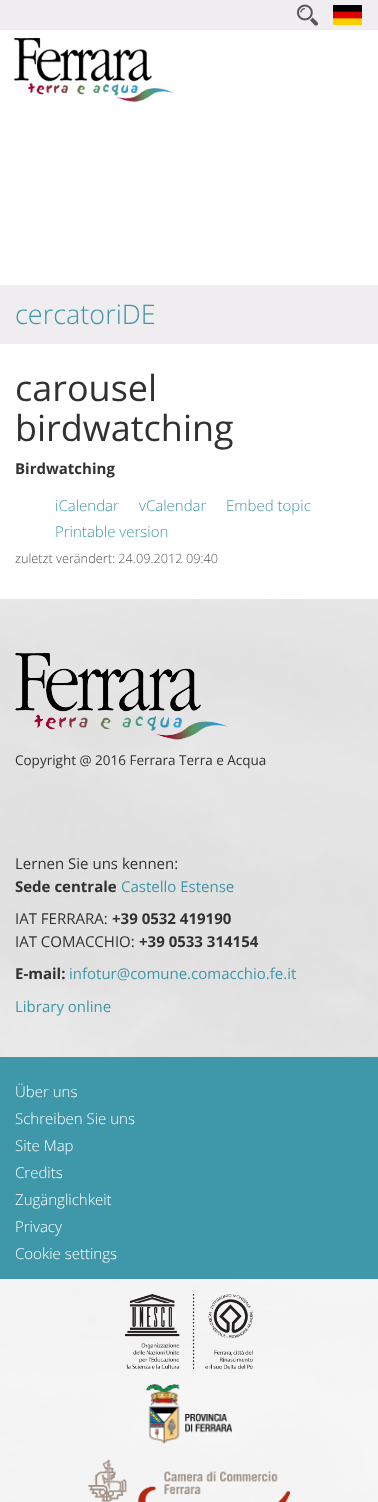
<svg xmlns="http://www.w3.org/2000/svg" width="378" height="1502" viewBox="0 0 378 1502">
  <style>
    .t1 { font: 300 27px Open Sans; fill: #3f97aa; }
    .t2 { font: 36px Open Sans; fill: #313131; }
    .t3 { font: bold 15px Open Sans; fill: #313131; }
    .t4 { font: 300 15px Open Sans; fill: #3f97aa; }
    .t5 { font: 300 12.75px Open Sans; fill: #555; }
    .t6 { font: 13.5px Open Sans; fill: #313131; }
    .t7 { font: 15px Open Sans; fill: #313131; }
    .t8 { font: 15px Open Sans; fill: #3f97aa; }
    .t9 { font: 300 15px Open Sans; fill: #fff; }
  </style>
  <rect width="100%" height="100%" fill="#fff"/>
  <rect x="0" y="0" width="378" height="30" fill="#efedef"/>
  <image x="333" y="5" width="29" height="20" href="images/1.png"/>
  <image x="297" y="4" width="21" height="22" href="images/2.png"/>
  <image x="14" y="38" width="159" height="64" href="images/3.png"/>
  <rect x="0" y="285" width="378" height="59" fill="#efedef"/>
  <text x="15" y="324" class="t1">cercatoriDE</text>
  <text x="15" y="401" class="t2">carousel</text>
  <text x="15" y="441" class="t2">birdwatching</text>
  <text x="15" y="474" class="t3">Birdwatching</text>
  <text x="55" y="511" class="t4">iCalendar</text>
  <text x="139" y="511" class="t4">vCalendar</text>
  <text x="226" y="511" class="t4">Embed topic</text>
  <text x="55" y="537" class="t4">Printable version</text>
  <text x="15" y="563" class="t5">zuletzt verändert: 24.09.2012 09:40</text>
  <image x="0" y="599" width="378" height="903" href="images/4.png"/>
  <image x="15" y="653" width="214" height="87" href="images/5.png"/>
  <text x="15" y="765" class="t6">Copyright @ 2016 Ferrara Terra e Acqua</text>
  <text x="15" y="869" class="t7">Lernen Sie uns kennen:</text>
  <text x="15" y="892" class="t3">Sede centrale</text>
  <text x="121" y="892" class="t8">Castello Estense</text>
  <text x="15" y="924" class="t7">IAT FERRARA:</text>
  <text x="112" y="924" class="t3">+39 0532 419190</text>
  <text x="15" y="947" class="t7">IAT COMACCHIO:</text>
  <text x="139" y="947" class="t3">+39 0533 314154</text>
  <text x="15" y="979" class="t3">E-mail:</text>
  <text x="69" y="979" class="t8">infotur@comune.comacchio.fe.it</text>
  <text x="15" y="1012" class="t8">Library online</text>
  <rect x="0" y="1057" width="378" height="222" fill="#3f97aa"/>
  <text x="15" y="1097" class="t9">Über uns</text>
  <text x="15" y="1124" class="t9">Schreiben Sie uns</text>
  <text x="15" y="1151" class="t9">Site Map</text>
  <text x="15" y="1178" class="t9">Credits</text>
  <text x="15" y="1205" class="t9">Zugänglichkeit</text>
  <text x="15" y="1232" class="t9">Privacy</text>
  <text x="15" y="1259" class="t9">Cookie settings</text>
  <rect x="0" y="1279" width="378" height="223" fill="#ffffff80"/>
  <image x="125" y="1294" width="128" height="75" href="images/6.png"/>
  <image x="146" y="1384" width="86" height="60" href="images/7.png"/>
  <image x="88" y="1459" width="202" height="43" href="images/8.png"/>
</svg>
